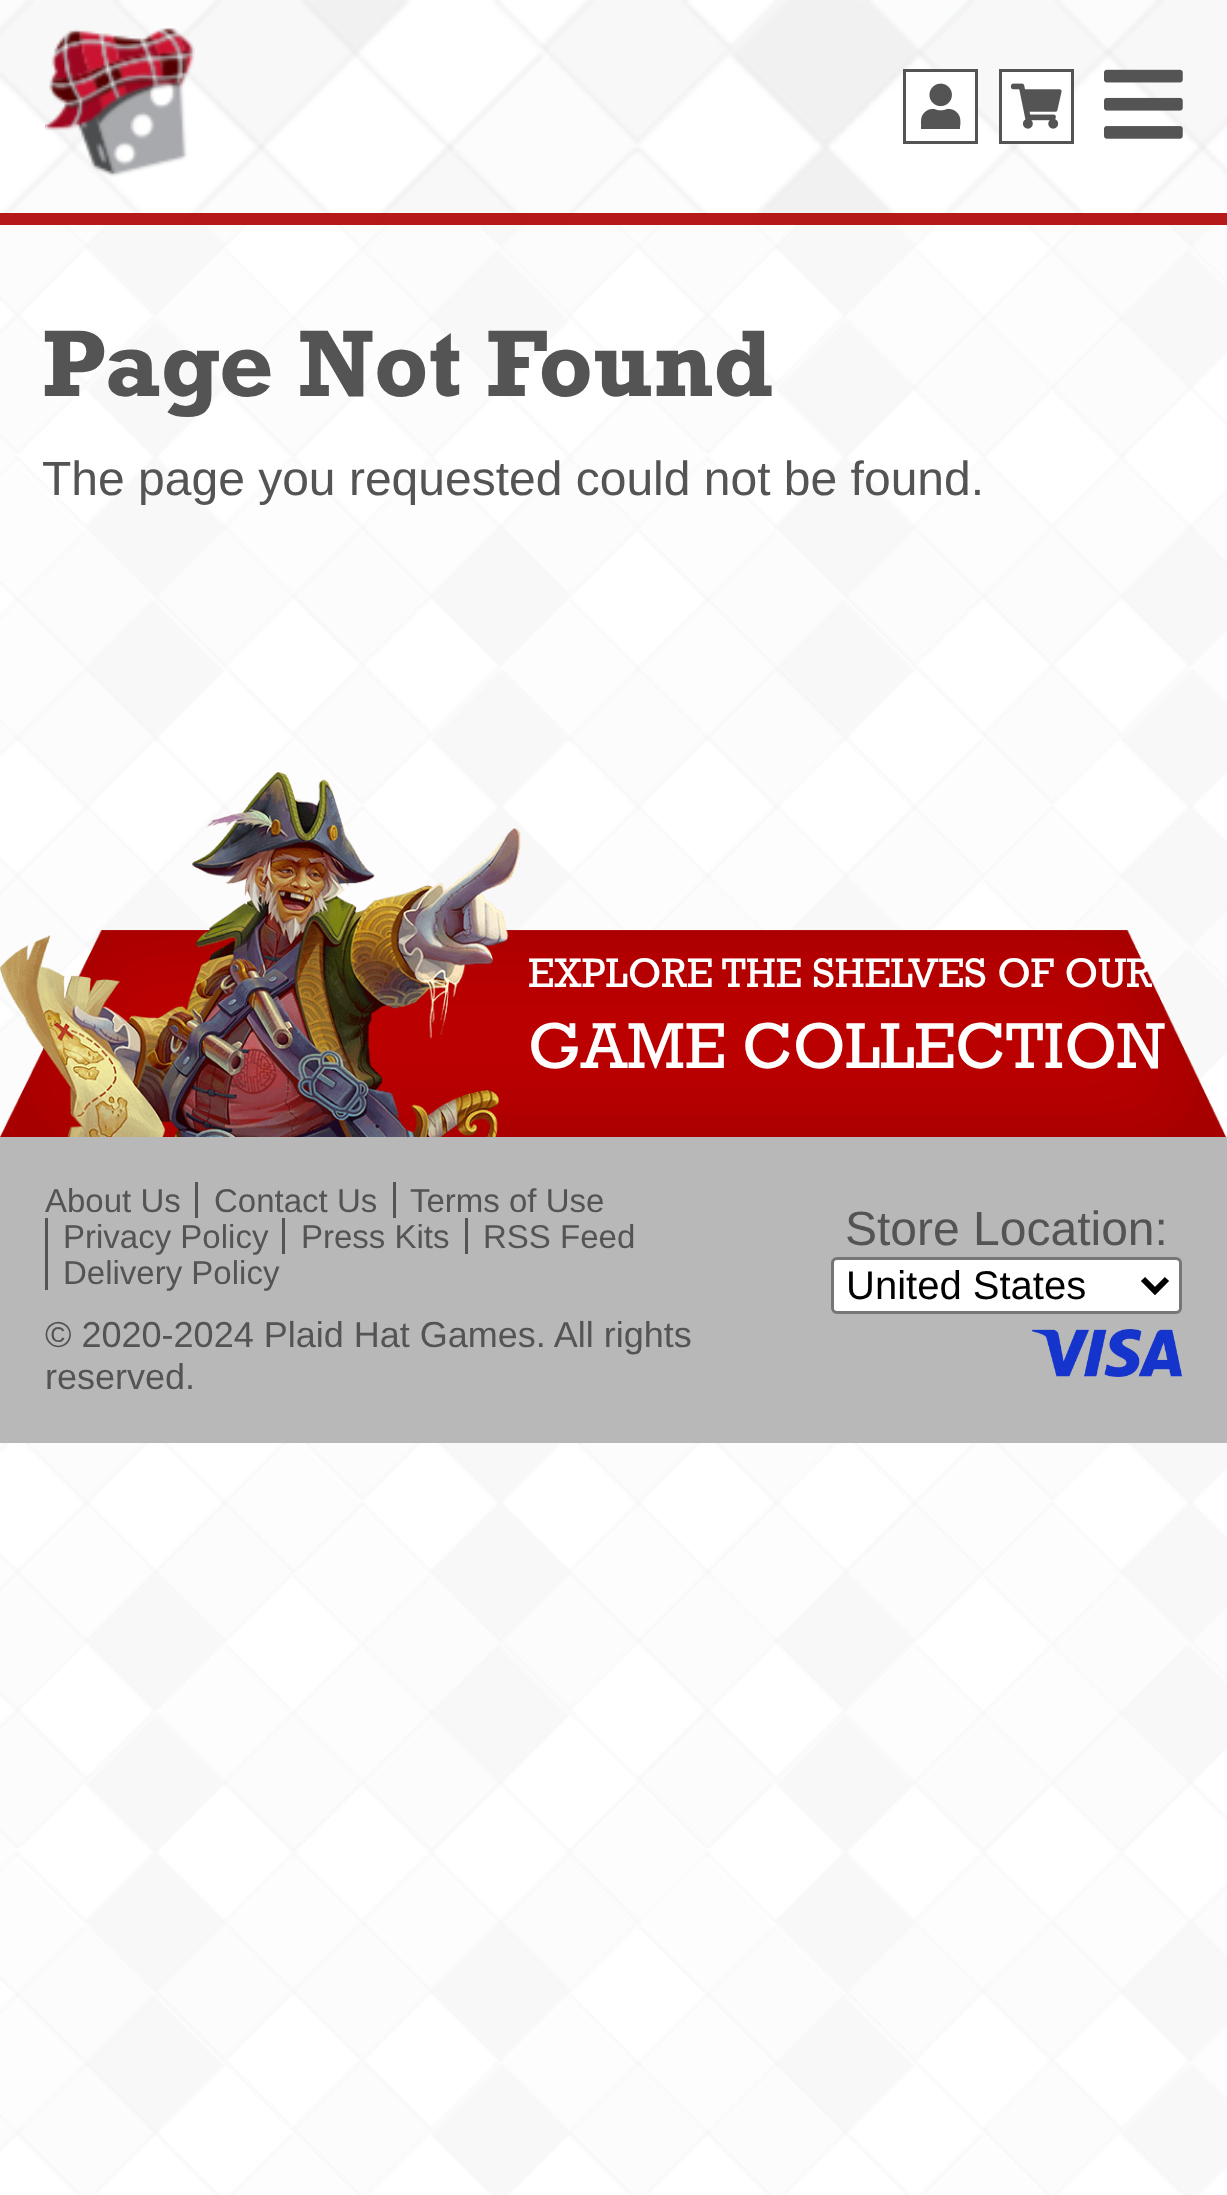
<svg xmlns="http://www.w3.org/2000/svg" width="1227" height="2195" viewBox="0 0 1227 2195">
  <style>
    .t1 { font: bold 96px Rockwell; fill: #545454; }
    .t2 { font: 48px Liberation Sans; fill: #545454; }
    .t3 { font: 42px Rockwell; fill: #fff; }
    .t4 { font: 66px Rockwell; fill: #fff; }
    .t5 { font: 33px Liberation Sans; fill: #545454; }
    .t6 { font: 36px Liberation Sans; fill: #545454; }
    .t7 { font: 40px Liberation Sans; fill: #000; }
  </style>
  <rect width="100%" height="100%" fill="#fff"/>
  <image x="0" y="225" width="1227" height="1970" href="images/1.png"/>
  <image x="0" y="0" width="1227" height="225" href="images/2.png"/>
  <rect x="0" y="213" width="1227" height="12" fill="#ae0000e6"/>
  <image x="45" y="28" width="150" height="149" href="images/3.png"/>
  <rect x="933" y="72" width="42" height="42" fill="#fff"/>
  <rect x="904.5" y="70.5" width="72" height="72" fill="none" stroke="#545454" stroke-width="3"/>
  <image x="921" y="83" width="40" height="43" href="images/4.png"/>
  <rect x="921" y="126" width="39" height="3" fill="#545454"/>
  <rect x="1000.5" y="70.5" width="72" height="72" fill="#fff" stroke="#545454" stroke-width="3"/>
  <image x="1011" y="83" width="51" height="46" href="images/5.png"/>
  <image x="1104" y="69" width="79" height="70" href="images/6.png"/>
  <text x="42" y="396" class="t1">Page Not Found</text>
  <text x="42" y="495" class="t2">The page you requested could not be found.</text>
  <image x="0" y="772" width="1227" height="365" href="images/7.png"/>
  <text x="528" y="987" class="t3">EXPLORE THE SHELVES OF OUR</text>
  <text x="528" y="1068" class="t4">GAME COLLECTION</text>
  <rect x="0" y="1137" width="1227" height="306" fill="#b8b8b8"/>
  <text x="45" y="1212" class="t5">About Us</text>
  <rect x="195" y="1182" width="3" height="36" fill="#545454"/>
  <text x="214" y="1212" class="t5">Contact Us</text>
  <rect x="393" y="1182" width="3" height="36" fill="#545454"/>
  <text x="410" y="1212" class="t5">Terms of Use</text>
  <rect x="45" y="1218" width="3" height="72" fill="#545454"/>
  <text x="63" y="1248" class="t5">Privacy Policy</text>
  <rect x="282" y="1218" width="3" height="36" fill="#545454"/>
  <text x="301" y="1248" class="t5">Press Kits</text>
  <rect x="465" y="1218" width="3" height="36" fill="#545454"/>
  <text x="483" y="1248" class="t5">RSS Feed</text>
  <text x="63" y="1284" class="t5">Delivery Policy</text>
  <text x="45" y="1347" class="t6">© 2020-2024 Plaid Hat Games. All rights</text>
  <text x="45" y="1389" class="t6">reserved.</text>
  <text x="845" y="1245" class="t2">Store Location:</text>
  <rect x="832.5" y="1258.5" width="348" height="54" rx="4.5" fill="#fff" stroke="#767676" stroke-width="3"/>
  <path d="M1143 1279L1155 1291L1167 1279" fill="none" stroke="#000" stroke-width="6"/>
  <text x="846" y="1299" class="t7">United States</text>
  <image x="1032" y="1329" width="150" height="48" href="images/8.png"/>
</svg>
